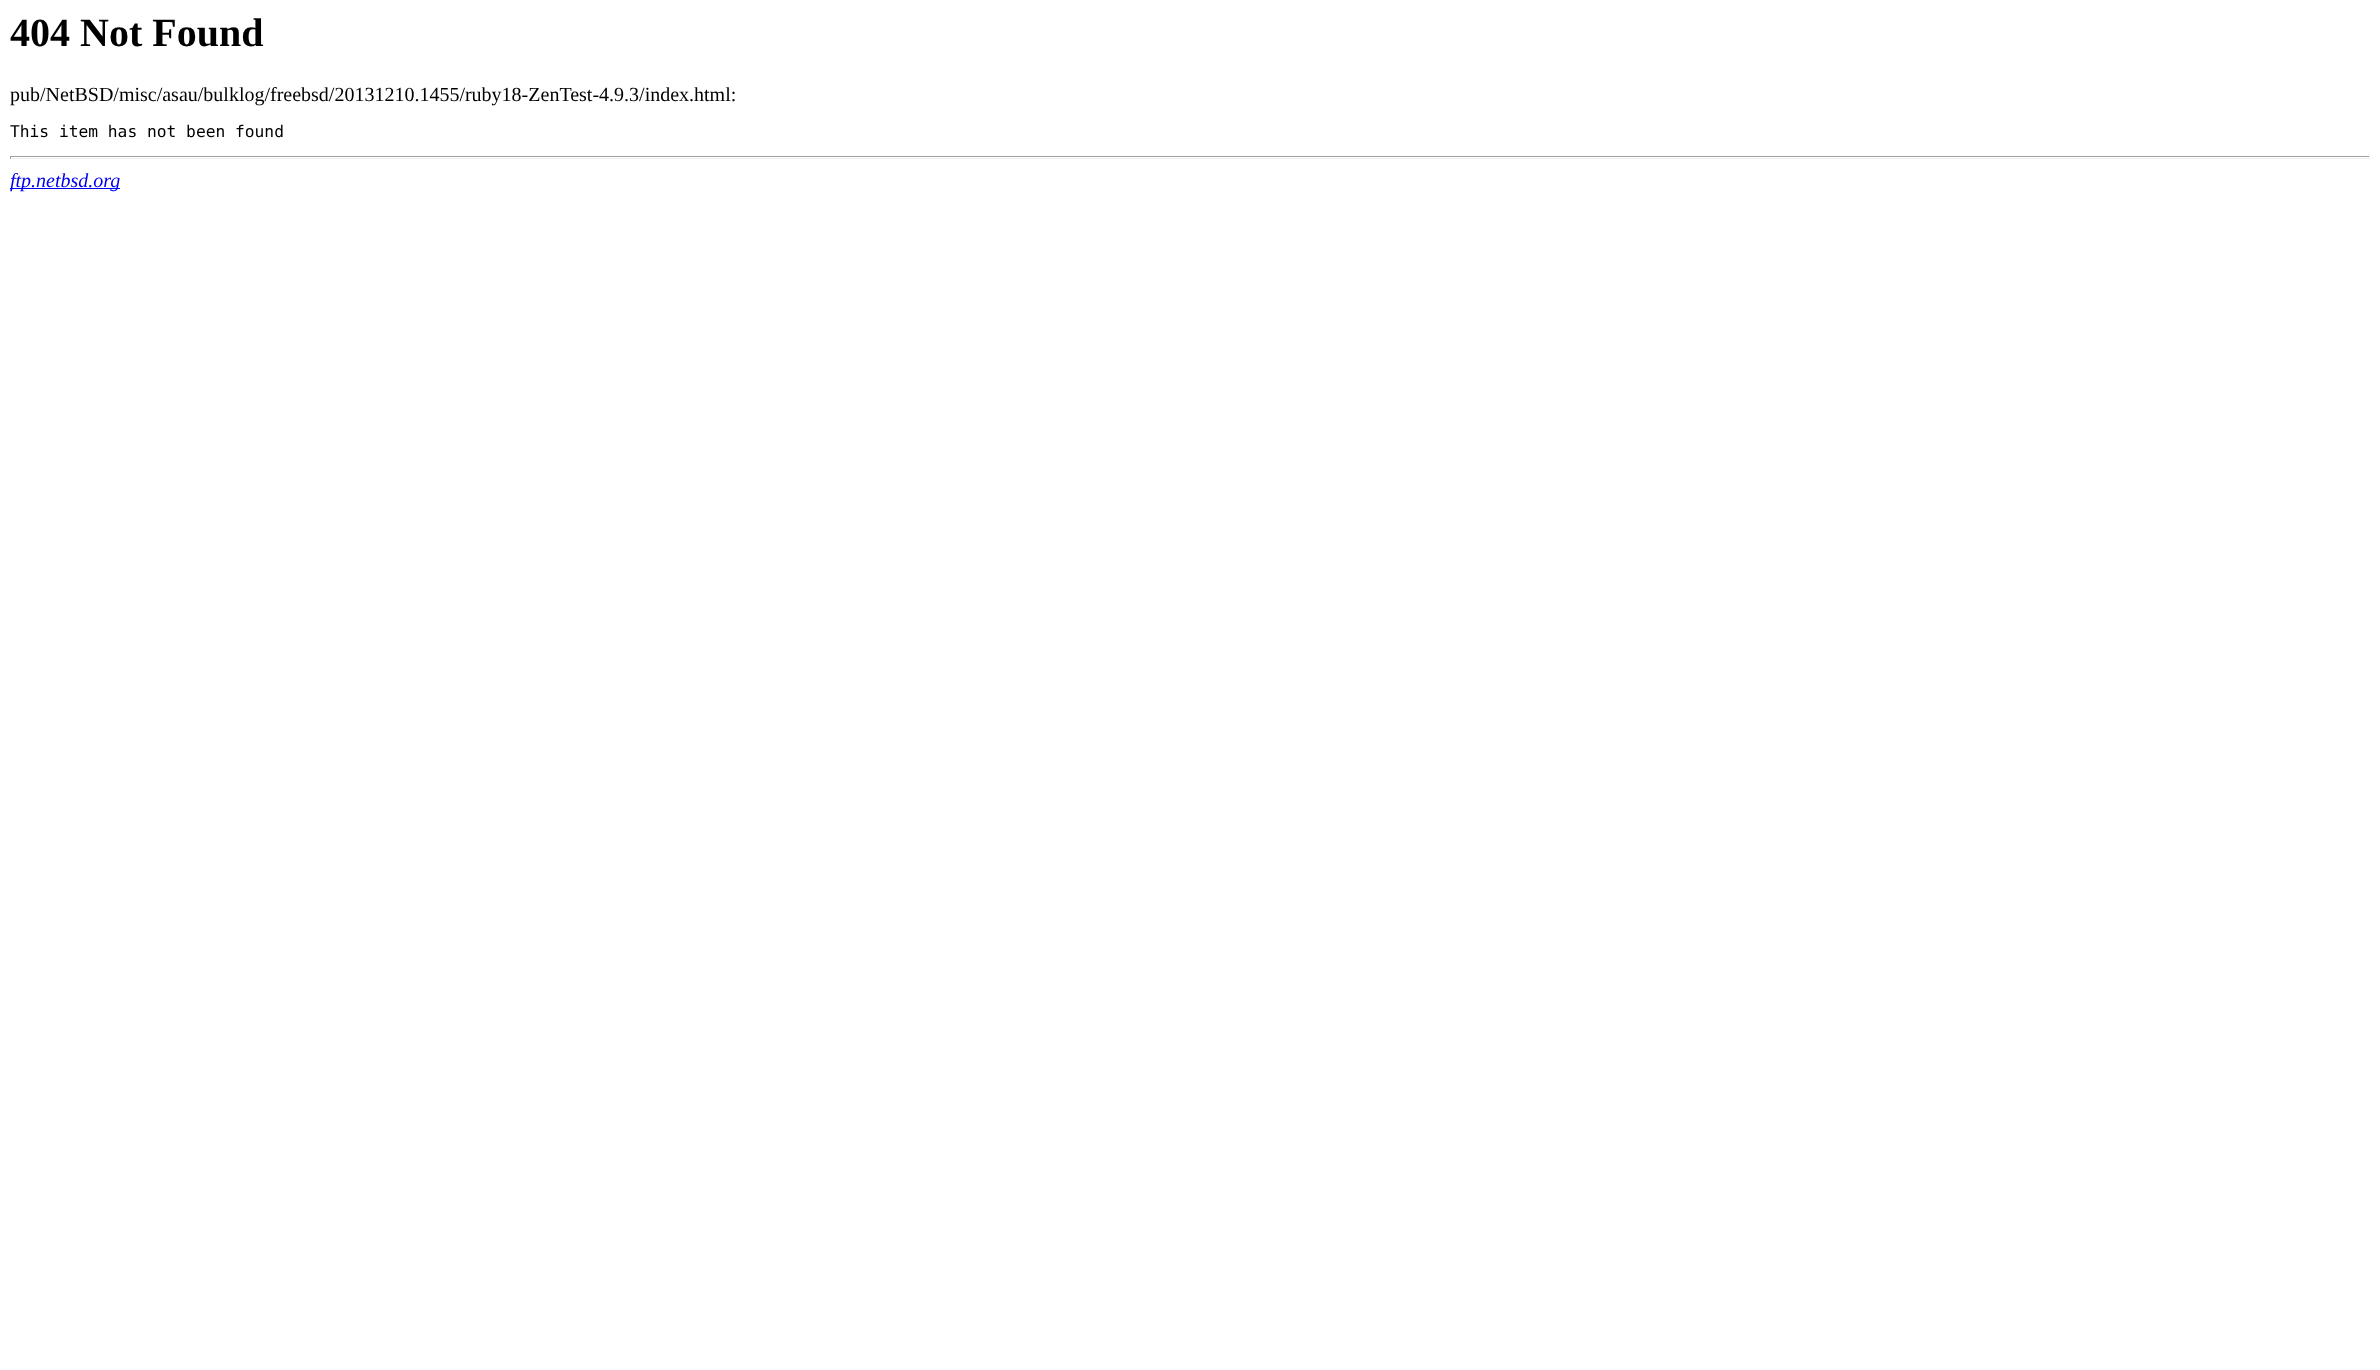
<svg xmlns="http://www.w3.org/2000/svg" width="2380" height="1370" viewBox="0 0 2380 1370">
  <style>
    .t1 { font: bold 40px Liberation Serif; fill: #000; }
    .t2 { font: 20px Liberation Serif; fill: #000; }
    .t3 { font: 16.25px DejaVu Sans Mono; fill: #000; }
    .t4 { font: italic 20px Liberation Serif; fill: #00e; }
  </style>
  <rect width="100%" height="100%" fill="#fff"/>
  <text x="10" y="46" class="t1">404 Not Found</text>
  <text x="10" y="101" class="t2">pub/NetBSD/misc/asau/bulklog/freebsd/20131210.1455/ruby18-ZenTest-4.9.3/index.html:</text>
  <text x="10" y="137" class="t3">This item has not been found</text>
  <rect x="10" y="156" width="2360" height="1" fill="#9f9f9f"/>
  <rect x="2369" y="156" width="1" height="3" fill="#eee"/>
  <rect x="10" y="158" width="2360" height="1" fill="#eee"/>
  <rect x="10" y="156" width="1" height="3" fill="#9f9f9f"/>
  <rect x="10" y="188" width="110" height="1" fill="#00e"/>
  <text x="10" y="187" class="t4">ftp.netbsd.org</text>
</svg>
